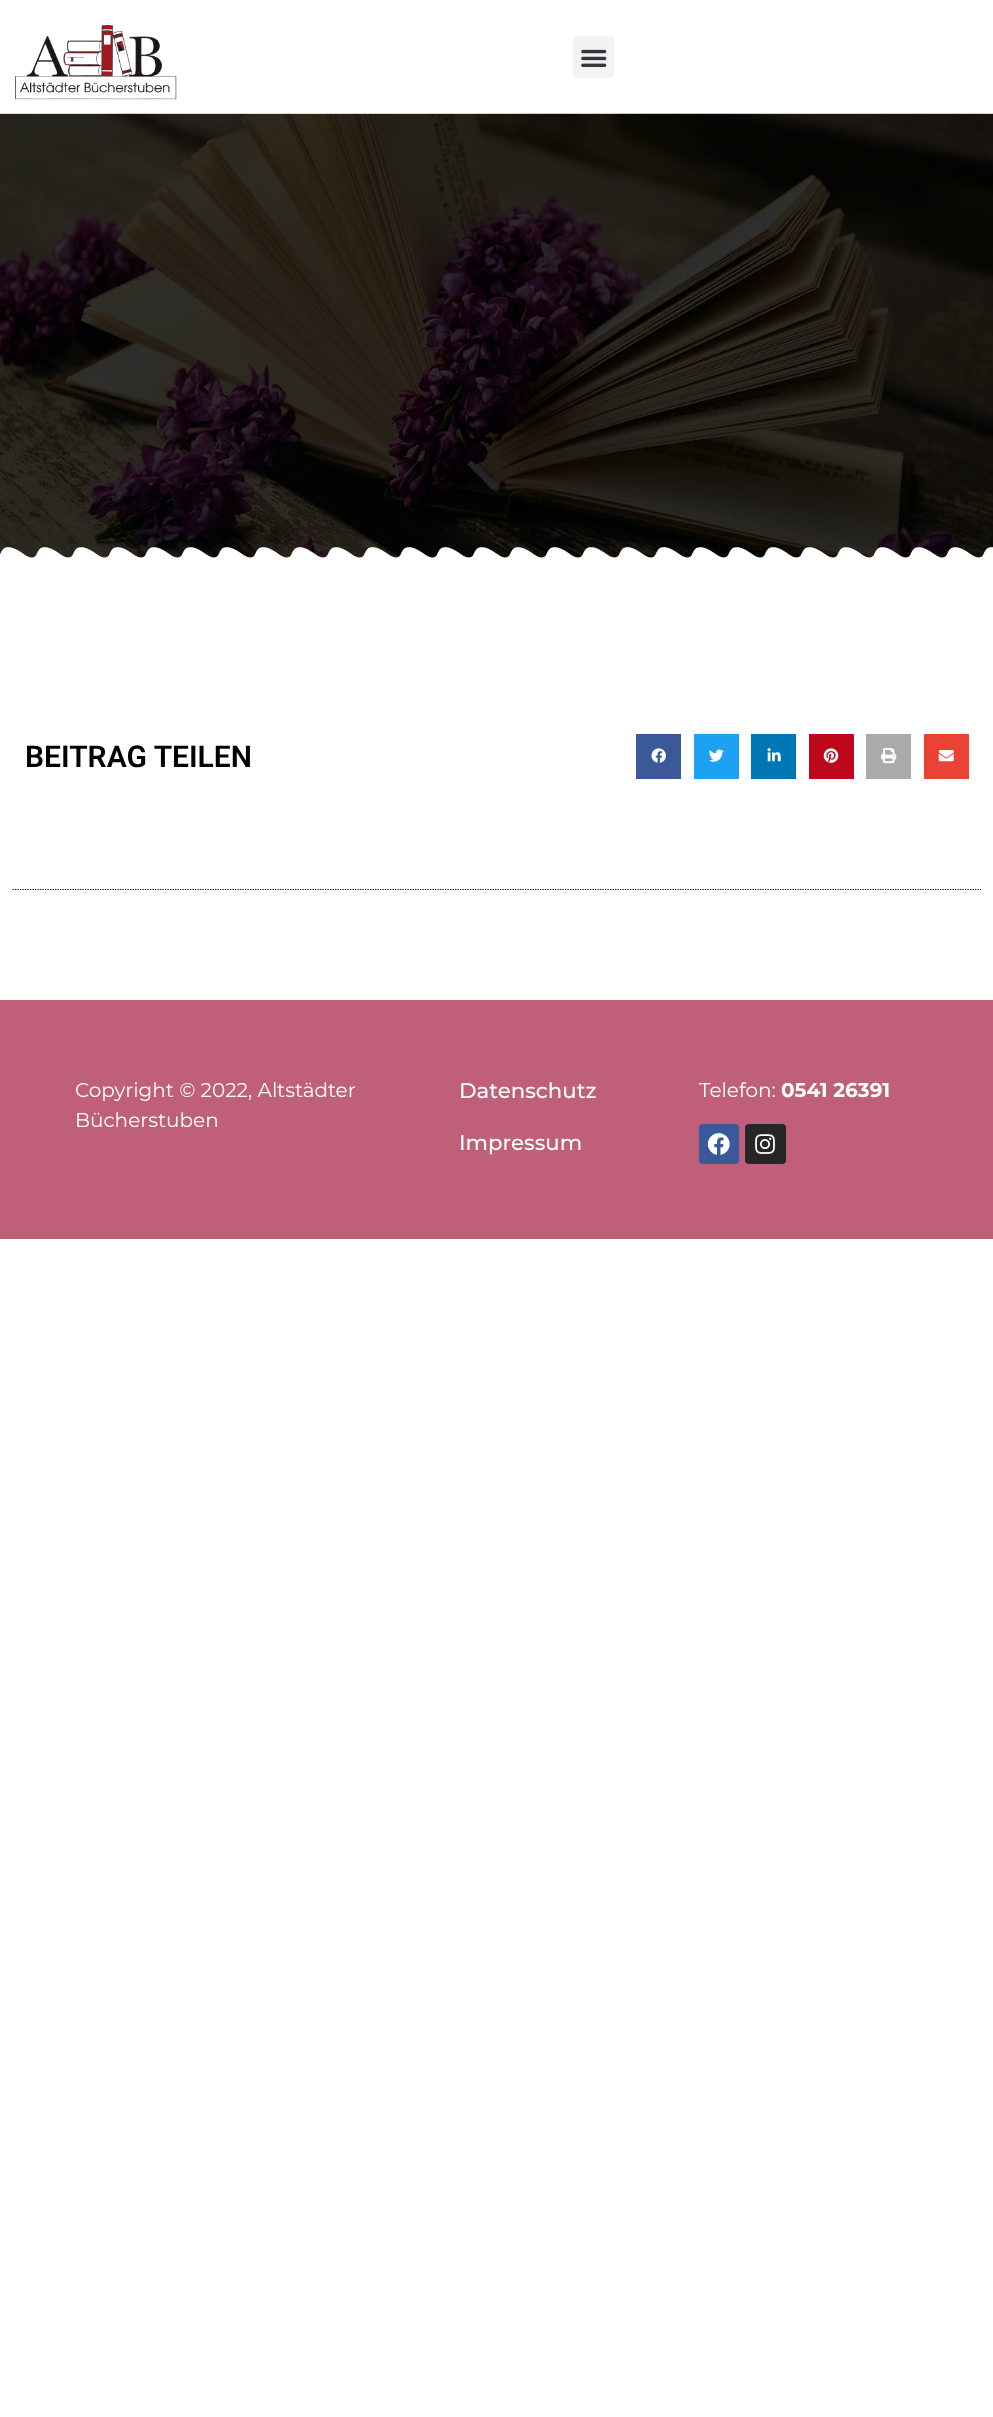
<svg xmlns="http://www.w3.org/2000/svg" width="993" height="2417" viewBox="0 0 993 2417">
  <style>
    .t1 { font: 600 30px Roboto; fill: #000; }
    .t2 { font: 20px Montserrat; fill: #fff; }
    .t3 { font: 500 21.25px Montserrat; fill: #fff; }
    .t4 { font: bold 20px Montserrat; fill: #fff; }
  </style>
  <rect width="100%" height="100%" fill="#fff"/>
  <image x="15" y="25" width="162" height="75" href="images/1.png"/>
  <rect x="573" y="36" width="41" height="42" rx="4" fill="#f2f2f2"/>
  <image x="581" y="49" width="26" height="18" href="images/2.png"/>
  <image x="0" y="113" width="993" height="445" href="images/3.png"/>
  <image x="0" y="547" width="993" height="12" href="images/4.png"/>
  <text x="25" y="767" class="t1">BEITRAG TEILEN</text>
  <rect x="636" y="734" width="45" height="45" fill="#3b5998"/>
  <image x="651" y="748" width="15" height="15" href="images/5.png"/>
  <rect x="694" y="734" width="45" height="45" fill="#1da1f2"/>
  <image x="709" y="749" width="15" height="13" href="images/6.png"/>
  <rect x="751" y="734" width="45" height="45" fill="#0077b5"/>
  <image x="767" y="748" width="14" height="14" href="images/7.png"/>
  <rect x="809" y="734" width="45" height="45" fill="#bd081c"/>
  <image x="823" y="748" width="16" height="15" href="images/8.png"/>
  <rect x="866" y="734" width="45" height="45" fill="#aaa"/>
  <image x="881" y="748" width="16" height="16" href="images/9.png"/>
  <rect x="924" y="734" width="45" height="45" fill="#ea4335"/>
  <image x="938" y="750" width="16" height="12" href="images/10.png"/>
  <path d="M12.5 889.5H981" fill="none" stroke="#000" stroke-width="1.2" stroke-dasharray="1.25 1.25"/>
  <rect x="0" y="1000" width="993" height="239" fill="#bf5f7a"/>
  <text x="75" y="1097" class="t2">Copyright © 2022, Altstädter</text>
  <text x="75" y="1127" class="t2">Bücherstuben</text>
  <text x="459" y="1098" class="t3">Datenschutz</text>
  <text x="459" y="1150" class="t3">Impressum</text>
  <text x="699" y="1097" class="t2">Telefon:</text>
  <text x="781" y="1097" class="t4">0541 26391</text>
  <rect x="699" y="1124" width="40" height="40" rx="4" fill="#3b5998"/>
  <image x="707" y="1133" width="23" height="22" href="images/11.png"/>
  <rect x="745" y="1124" width="41" height="40" rx="4" fill="#262626"/>
  <image x="755" y="1134" width="20" height="20" href="images/12.png"/>
</svg>
